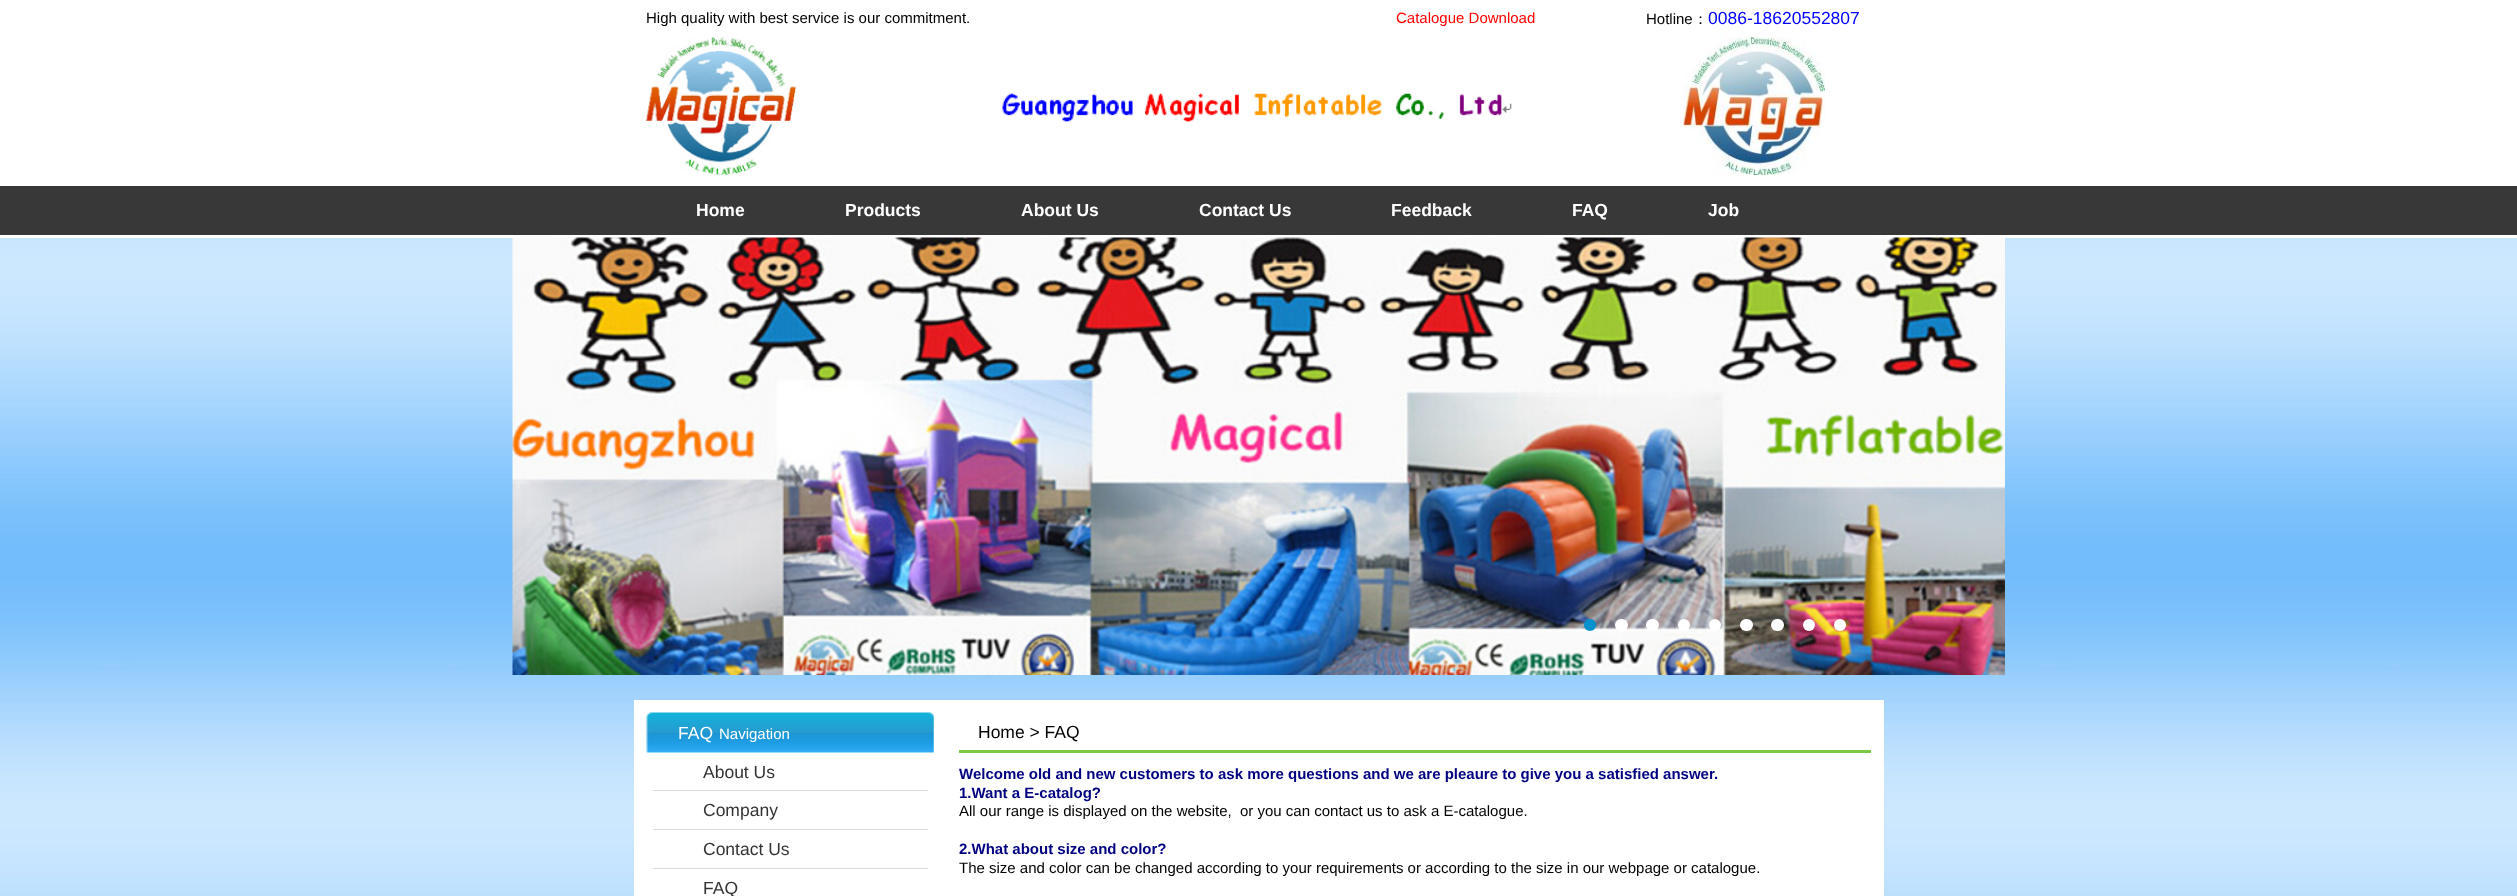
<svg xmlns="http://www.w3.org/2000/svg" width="2517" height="896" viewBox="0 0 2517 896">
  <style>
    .t1 { font: 15px Liberation Sans; fill: #000; }
    .t2 { font: 15px Liberation Sans; fill: #f00; }
    .t3 { font: 500 15px WenQuanYi Zen Hei; fill: #000; }
    .t4 { font: 17.5px Liberation Sans; fill: #00f; }
    .t5 { font: bold 17.5px Liberation Sans; fill: #fff; }
    .t6 { font: 17.5px Liberation Sans; fill: #fff; }
    .t7 { font: 15px Liberation Sans; fill: #fff; }
    .t8 { font: 17.5px Liberation Sans; fill: #333; }
    .t9 { font: 17.5px Liberation Sans; fill: #000; }
    .t10 { font: bold 15px Liberation Sans; fill: #000080; }
  </style>
  <rect width="100%" height="100%" fill="#fff"/>
  <image x="0" y="238" width="2517" height="658" href="images/1.png"/>
  <text x="646" y="23" class="t1">High quality with best service is our commitment.</text>
  <text x="1396" y="23" class="t2">Catalogue Download</text>
  <text x="1646" y="24" class="t1">Hotline</text>
  <text x="1693" y="24" class="t3">：</text>
  <text x="1708" y="24" class="t4">0086-18620552807</text>
  <image x="646" y="37" width="151" height="138" href="images/2.png"/>
  <image x="1002" y="93" width="510" height="29" href="images/3.png"/>
  <image x="1683" y="37" width="142" height="138" href="images/4.png"/>
  <rect x="0" y="186" width="2517" height="49" fill="#383838"/>
  <text x="696" y="216" class="t5">Home</text>
  <text x="845" y="216" class="t5">Products</text>
  <text x="1021" y="216" class="t5">About Us</text>
  <text x="1199" y="216" class="t5">Contact Us</text>
  <text x="1391" y="216" class="t5">Feedback</text>
  <text x="1572" y="216" class="t5">FAQ</text>
  <text x="1708" y="216" class="t5">Job</text>
  <image x="512" y="237" width="1493" height="438" href="images/5.png"/>
  <circle cx="1590" cy="625" r="6" fill="#0092ce"/>
  <rect x="1615" y="619" width="13" height="12" rx="6" fill="#fff"/>
  <rect x="1646" y="619" width="13" height="12" rx="6" fill="#fff"/>
  <circle cx="1684" cy="625" r="6" fill="#fff"/>
  <circle cx="1715" cy="625" r="6" fill="#fff"/>
  <rect x="1740" y="619" width="13" height="12" rx="6" fill="#fff"/>
  <rect x="1771" y="619" width="13" height="12" rx="6" fill="#fff"/>
  <circle cx="1809" cy="625" r="6" fill="#fff"/>
  <circle cx="1840" cy="625" r="6" fill="#fff"/>
  <rect x="634" y="700" width="1250" height="196" fill="#fff"/>
  <image x="646" y="712" width="288" height="41" href="images/6.png"/>
  <text x="678" y="739" class="t6">FAQ</text>
  <text x="719" y="739" class="t7">Navigation</text>
  <rect x="653" y="790" width="275" height="1" fill="#dbdbdb"/>
  <text x="703" y="778" class="t8">About Us</text>
  <rect x="653" y="829" width="275" height="1" fill="#dbdbdb"/>
  <text x="703" y="816" class="t8">Company</text>
  <rect x="653" y="868" width="275" height="1" fill="#dbdbdb"/>
  <text x="703" y="855" class="t8">Contact Us</text>
  <text x="703" y="894" class="t8">FAQ</text>
  <rect x="959" y="750" width="912" height="3" fill="#79c848"/>
  <text x="978" y="738" class="t9">Home &gt; FAQ</text>
  <text x="959" y="779" class="t10">Welcome old and new customers to ask more questions and we are pleaure to give you a satisfied answer.</text>
  <text x="959" y="798" class="t10">1.Want a E-catalog?</text>
  <text x="959" y="816" class="t1" xml:space="preserve">All our range is displayed on the website,  or you can contact us to ask a E-catalogue.</text>
  <text x="959" y="854" class="t10">2.What about size and color?</text>
  <text x="959" y="873" class="t1">The size and color can be changed according to your requirements or according to the size in our webpage or catalogue.</text>
</svg>
